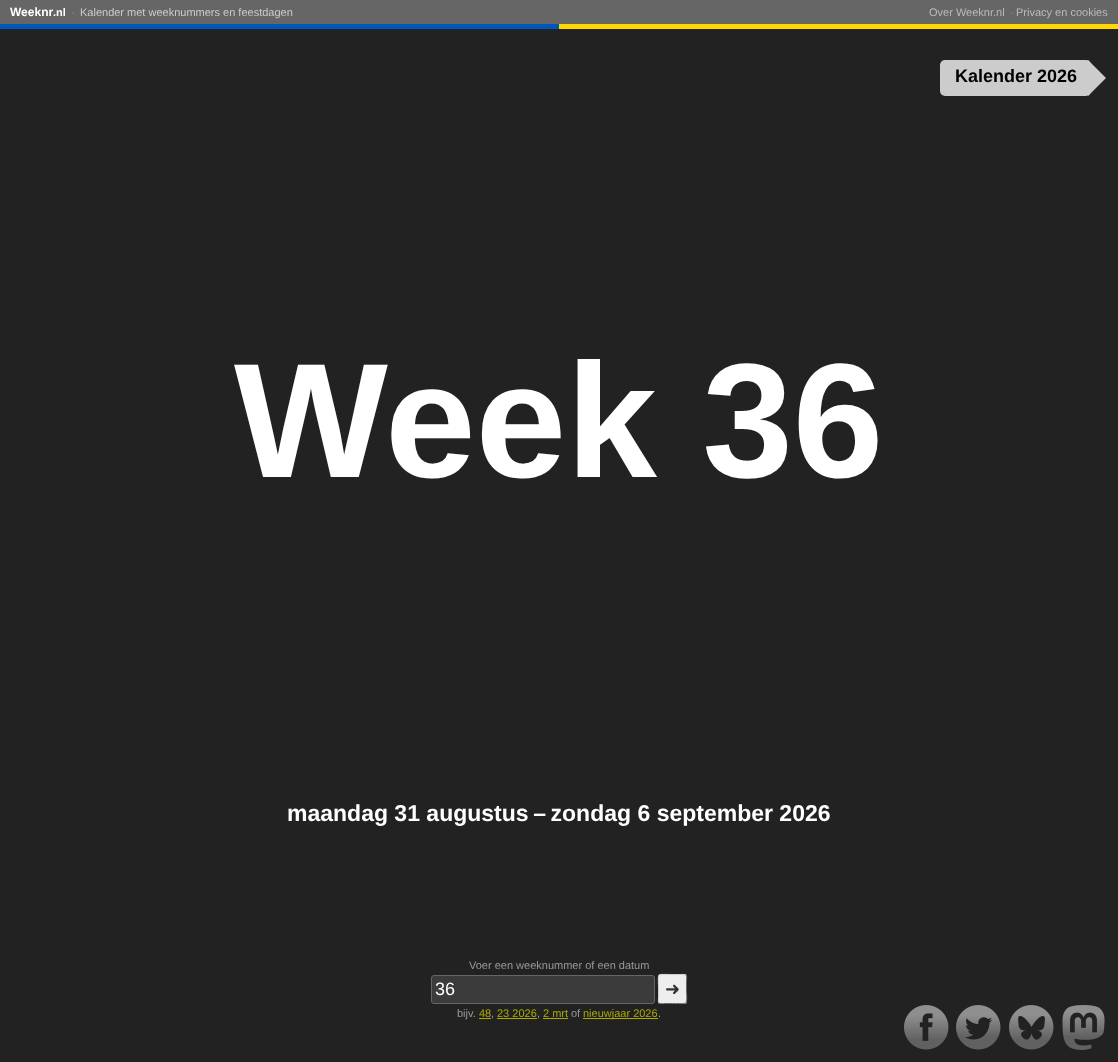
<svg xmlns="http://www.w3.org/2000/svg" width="1118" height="1062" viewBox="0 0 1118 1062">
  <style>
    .t1 { font: bold 12px Liberation Sans; fill: #fff; }
    .t2 { font: bold 11px Liberation Sans; fill: #fff; }
    .t3 { font: 11px Liberation Sans; fill: #999; }
    .t4 { font: 11px Liberation Sans; fill: #ccc; }
    .t5 { font: 11px Liberation Sans; fill: #bbb; }
    .t6 { font: bold 18px Liberation Sans; fill: #000; }
    .t7 { font: bold 163px Liberation Sans; fill: #fff; }
    .t8 { font: bold 23px Liberation Sans; fill: #fff; }
    .t9 { font: 18px Liberation Sans; fill: #fff; }
    .t10 { font: 18px DejaVu Sans; fill: #333; }
    .t11 { font: 11px Liberation Sans; fill: #aa0; }
  </style>
  <rect width="100%" height="100%" fill="#222"/>
  <rect x="0" y="0" width="1118" height="24" fill="#666"/>
  <text x="10" y="16" class="t1">Weeknr</text>
  <text x="53" y="16" class="t2">.nl</text>
  <text x="71" y="16" class="t3">·</text>
  <text x="80" y="16" class="t4">Kalender met weeknummers en feestdagen</text>
  <text x="929" y="16" class="t5">Over Weeknr.nl</text>
  <text x="1010" y="16" class="t3">·</text>
  <text x="1016" y="16" class="t5">Privacy en cookies</text>
  <rect x="0" y="24" width="559" height="5" fill="#0056b9"/>
  <rect x="559" y="24" width="559" height="5" fill="#ffd800"/>
  <rect x="940" y="60" width="151" height="36" rx="5" fill="#ccc"/>
  <text x="955" y="82" class="t6">Kalender 2026</text>
  <path d="M1088 96V60L1106 78Z" fill="#ccc"/>
  <text x="234" y="477" class="t7">Week 36</text>
  <text x="287" y="821" class="t8">maandag 31 augustus – zondag 6 september 2026</text>
  <text x="469" y="969" class="t3">Voer een weeknummer of een datum</text>
  <rect x="431.5" y="975.5" width="223" height="28" rx="2.5" fill="#3b3b3b" stroke="#666"/>
  <text x="435" y="995" class="t9">36</text>
  <rect x="658" y="974" width="29" height="30" rx="3" fill="#eee"/>
  <path d="M686 975C687 976.5 686.5 979.5 686.5 981V989C686.5 1006 689.5 1003.5 672.5 1003.5H665C663.5 1003.5 660.5 1004 659 1003" fill="none" stroke="#666"/>
  <path d="M659 1003C658 1001.5 658.5 998.5 658.5 997V989C658.5 972 655.5 974.5 672.5 974.5H680C681.5 974.5 684.5 974 686 975" fill="none" stroke="#ccc"/>
  <text x="665" y="995" class="t10">➜</text>
  <text x="457" y="1017" class="t3">bijv.</text>
  <text x="479" y="1017" class="t11">48</text>
  <rect x="479" y="1018" width="12" height="1" fill="#aa0"/>
  <text x="491" y="1017" class="t3">,</text>
  <text x="497" y="1017" class="t11">23 2026</text>
  <rect x="497" y="1018" width="40" height="1" fill="#aa0"/>
  <text x="537" y="1017" class="t3">,</text>
  <text x="543" y="1017" class="t11">2 mrt</text>
  <rect x="543" y="1018" width="25" height="1" fill="#aa0"/>
  <text x="571" y="1017" class="t3">of</text>
  <rect x="583" y="1018" width="75" height="1" fill="#aa0"/>
  <text x="583" y="1017" class="t11">nieuwjaar 2026</text>
  <text x="658" y="1017" class="t3">.</text>
  <image x="904" y="1005" width="45" height="45" href="images/1.png"/>
  <image x="956" y="1005" width="45" height="45" href="images/2.png"/>
  <image x="1009" y="1005" width="45" height="45" href="images/3.png"/>
  <image x="1062" y="1005" width="43" height="45" href="images/4.png"/>
</svg>
